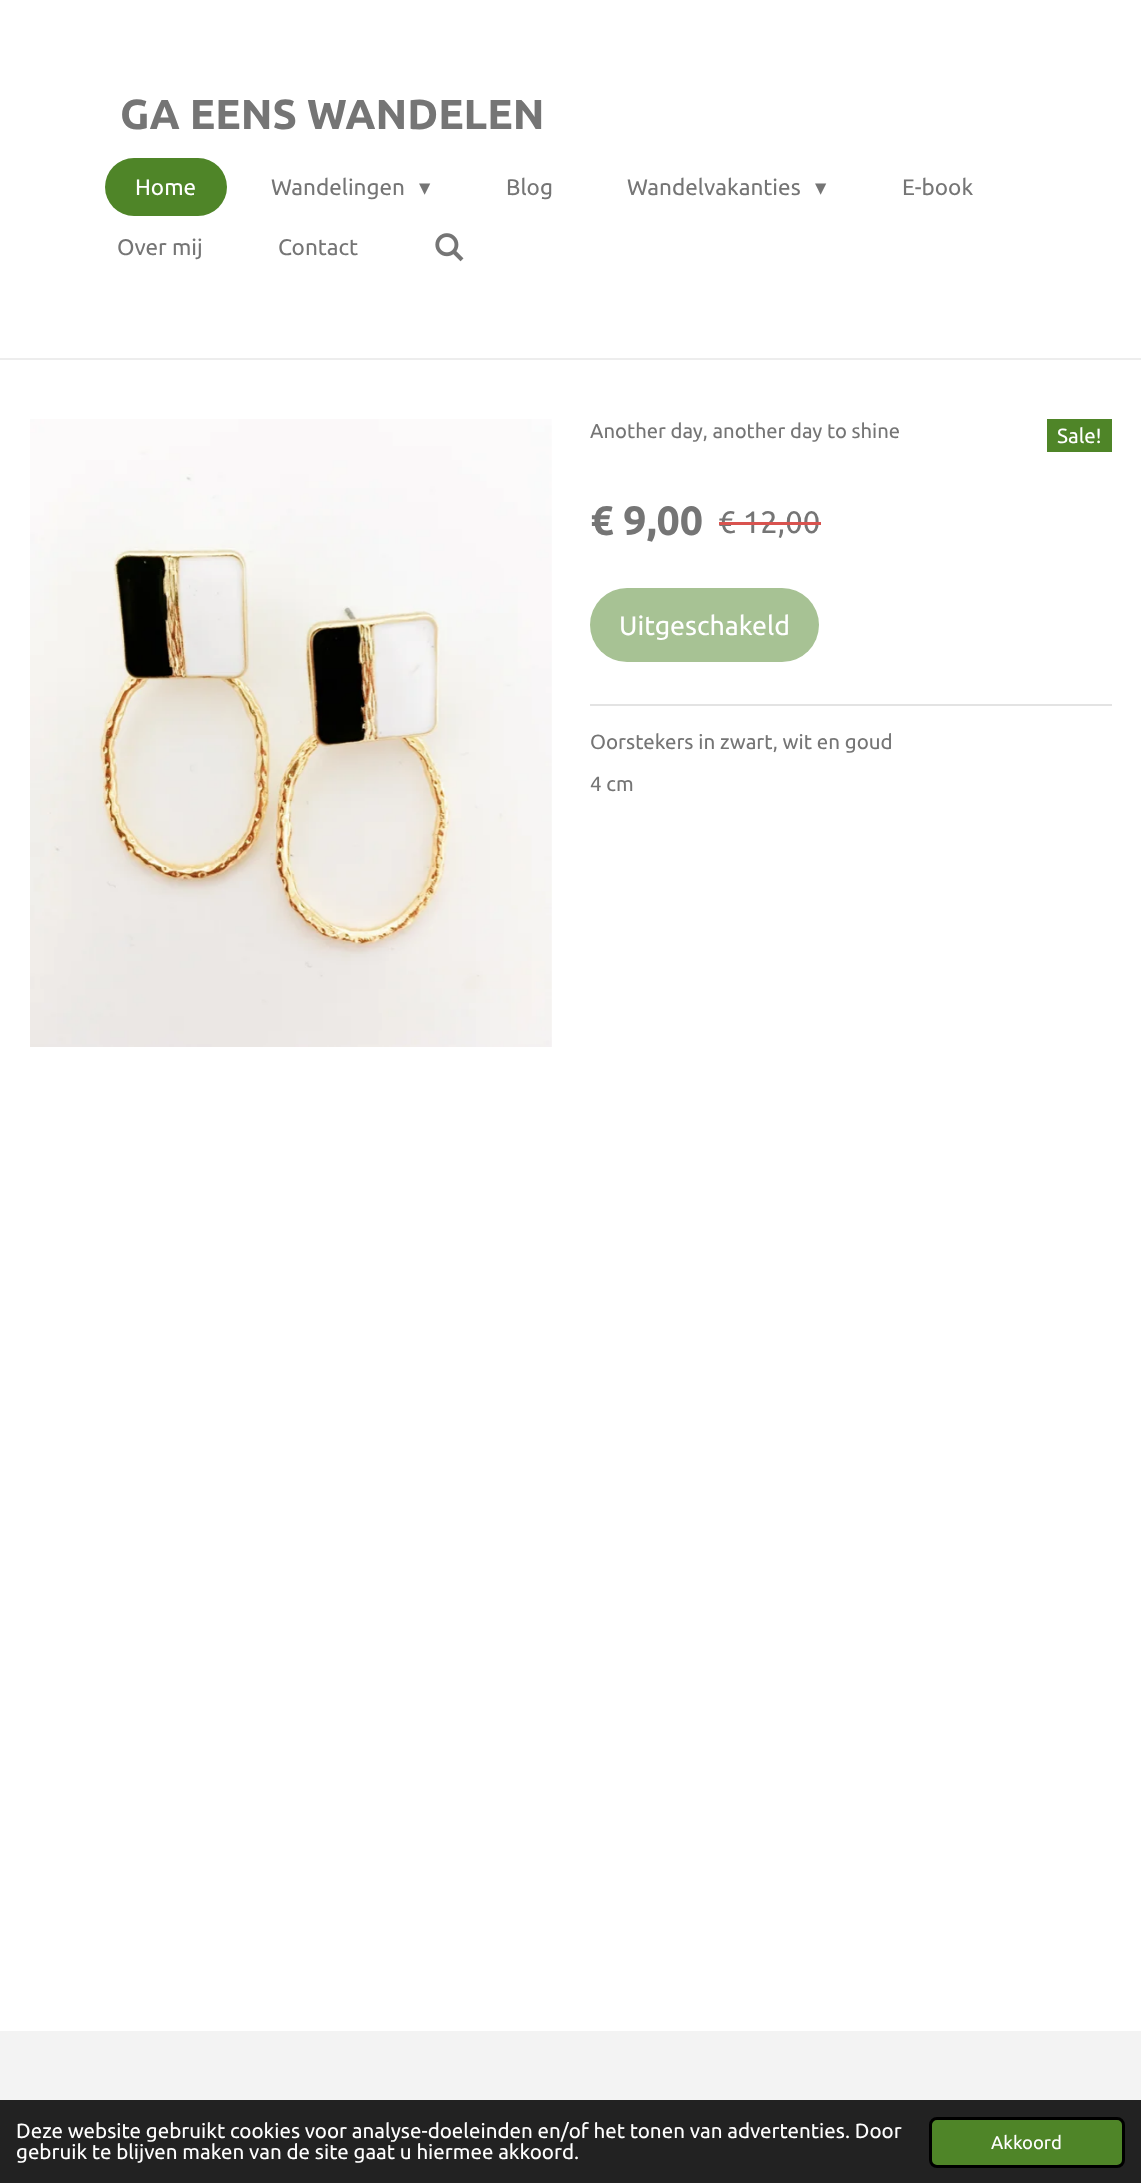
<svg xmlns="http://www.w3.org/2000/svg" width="1141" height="2183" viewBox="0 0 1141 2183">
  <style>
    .t1 { font: bold 42px Ubuntu; fill: #757575; }
    .t2 { font: 22.5px Ubuntu; fill: #fff; }
    .t3 { font: 22.5px Ubuntu; fill: #757575; }
    .t4 { font: 22.5px DejaVu Sans; fill: #757575; }
    .t5 { font: 20.25px Ubuntu; fill: #757575; }
    .t6 { font: 20.55px Ubuntu; fill: #fff; }
    .t7 { font: bold 41px Ubuntu; fill: #757575; }
    .t8 { font: 31px Ubuntu; fill: #757575; }
    .t9 { font: 26.75px Ubuntu; fill: #fff; }
    .t10 { font: 20.55px Ubuntu; fill: #757575; }
    .t11 { font: 18.5px Ubuntu; fill: #fff; }
  </style>
  <rect width="100%" height="100%" fill="#fff"/>
  <path d="M0 358V360H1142V2V358Z" fill="#ededed"/>
  <text x="120" y="129" class="t1">GA EENS WANDELEN</text>
  <rect x="105" y="158" width="122" height="58" rx="29" fill="#4f8528"/>
  <text x="135" y="195" class="t2">Home</text>
  <text x="271" y="195" class="t3">Wandelingen</text>
  <text x="419" y="195" class="t4">▾</text>
  <text x="506" y="195" class="t3">Blog</text>
  <text x="627" y="195" class="t3">Wandelvakanties</text>
  <text x="815" y="195" class="t4">▾</text>
  <text x="902" y="195" class="t3">E-book</text>
  <text x="117" y="255" class="t3">Over mij</text>
  <text x="278" y="255" class="t3">Contact</text>
  <image x="435" y="233" width="29" height="29" href="images/1.png"/>
  <image x="30" y="419" width="522" height="628" href="images/2.png"/>
  <text x="590" y="438" class="t5">Another day, another day to shine</text>
  <rect x="1047" y="419" width="65" height="33" fill="#4f8528"/>
  <text x="1057" y="443" class="t6">Sale!</text>
  <text x="590" y="535" class="t7">€ 9,00</text>
  <text x="718" y="533" class="t8">€ 12,00</text>
  <rect x="719" y="522" width="102" height="3" fill="#d9534f"/>
  <rect x="590" y="588" width="229" height="74" rx="37" fill="#a7c294"/>
  <text x="619" y="635" class="t9">Uitgeschakeld</text>
  <rect x="590" y="704" width="522" height="2" fill="#e3e3e3"/>
  <text x="590" y="749" class="t10">Oorstekers in zwart, wit en goud</text>
  <text x="590" y="791" class="t10">4 cm</text>
  <rect x="0" y="2031" width="1141" height="69" fill="#f3f3f3"/>
  <rect x="0" y="2100" width="1141" height="83" fill="#222"/>
  <text x="16" y="2138" class="t6">Deze website gebruikt cookies voor analyse-doeleinden en/of het tonen van advertenties. Door</text>
  <text x="16" y="2159" class="t6">gebruik te blijven maken van de site gaat u hiermee akkoord.</text>
  <rect x="930.5" y="2118.5" width="193" height="48" rx="6.5" fill="#4f8528" stroke="#000" stroke-width="3"/>
  <text x="991" y="2149" class="t11">Akkoord</text>
</svg>
